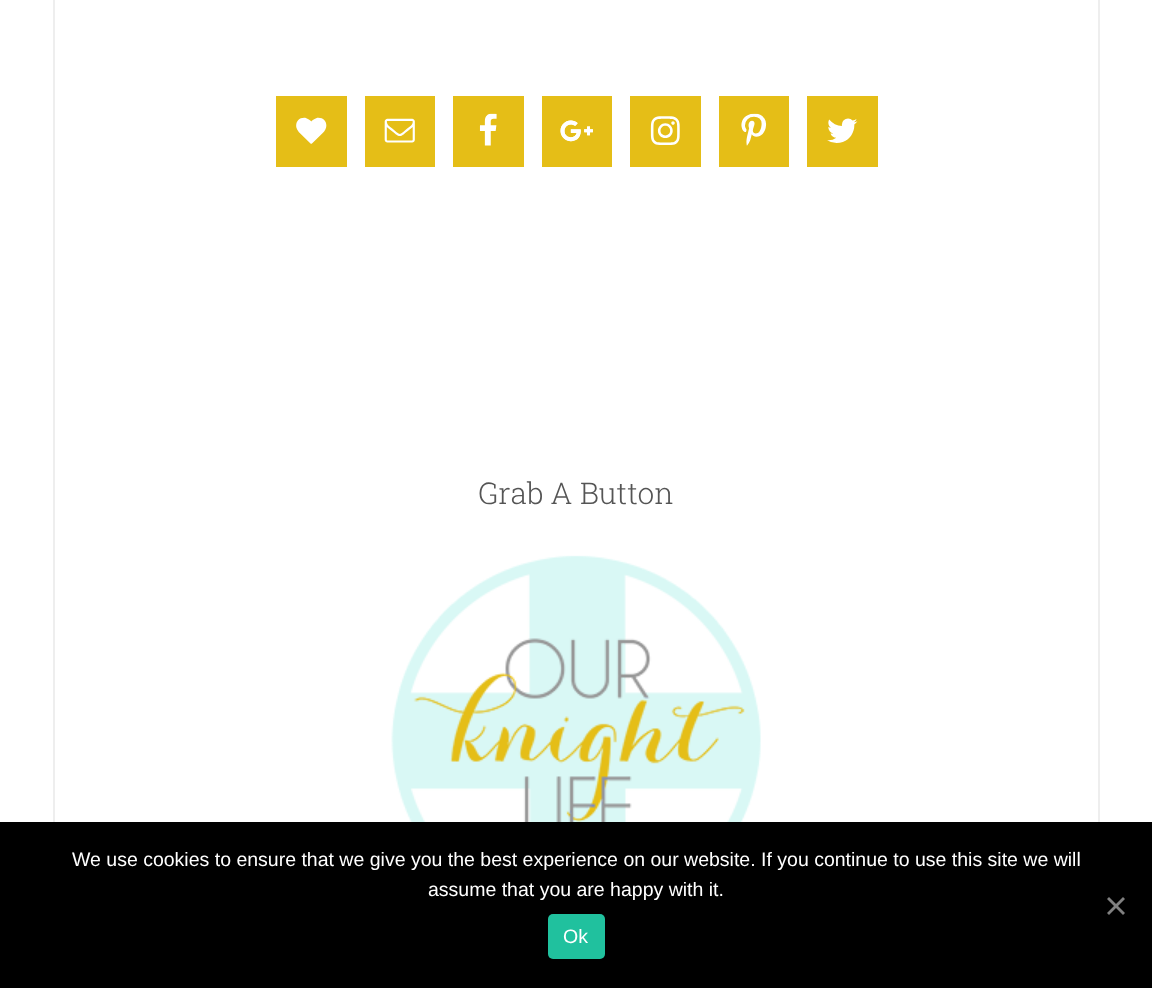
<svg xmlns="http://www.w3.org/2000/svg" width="1152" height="988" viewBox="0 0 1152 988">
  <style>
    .t1 { font: 300 30px Roboto Slab; fill: #555; }
    .t2 { font: 19.5px Liberation Sans; fill: #fff; }
  </style>
  <rect width="100%" height="100%" fill="#fff"/>
  <rect x="54" y="-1" width="1045" height="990" fill="none" stroke="#eee" stroke-width="2"/>
  <rect x="276" y="96" width="71" height="71" fill="#e5be17"/>
  <image x="296" y="117" width="31" height="27" href="images/1.png"/>
  <rect x="365" y="96" width="70" height="71" fill="#e5be17"/>
  <image x="384" y="118" width="31" height="25" href="images/2.png"/>
  <rect x="453" y="96" width="71" height="71" fill="#e5be17"/>
  <image x="479" y="113" width="18" height="33" href="images/3.png"/>
  <rect x="542" y="96" width="70" height="71" fill="#e5be17"/>
  <image x="560" y="120" width="33" height="22" href="images/4.png"/>
  <rect x="630" y="96" width="71" height="71" fill="#e5be17"/>
  <image x="650" y="116" width="30" height="29" href="images/5.png"/>
  <rect x="719" y="96" width="70" height="71" fill="#e5be17"/>
  <image x="741" y="113" width="26" height="33" href="images/6.png"/>
  <rect x="807" y="96" width="71" height="71" fill="#e5be17"/>
  <image x="827" y="118" width="31" height="25" href="images/7.png"/>
  <text x="478" y="504" class="t1">Grab A Button</text>
  <image x="391" y="555" width="370" height="267" href="images/8.png"/>
  <rect x="0" y="822" width="1152" height="166" fill="#000"/>
  <text x="72" y="866" class="t2">We use cookies to ensure that we give you the best experience on our website. If you continue to use this site we will</text>
  <text x="428" y="896" class="t2">assume that you are happy with it.</text>
  <path d="M1123 897L1125 899L1109 915L1107 913Z" fill="#808080"/>
  <path d="M1107 899L1109 897L1125 913L1123 915Z" fill="#808080"/>
  <rect x="548" y="914" width="57" height="45" rx="5" fill="#20c19e"/>
  <text x="563" y="943" class="t2">Ok</text>
</svg>
